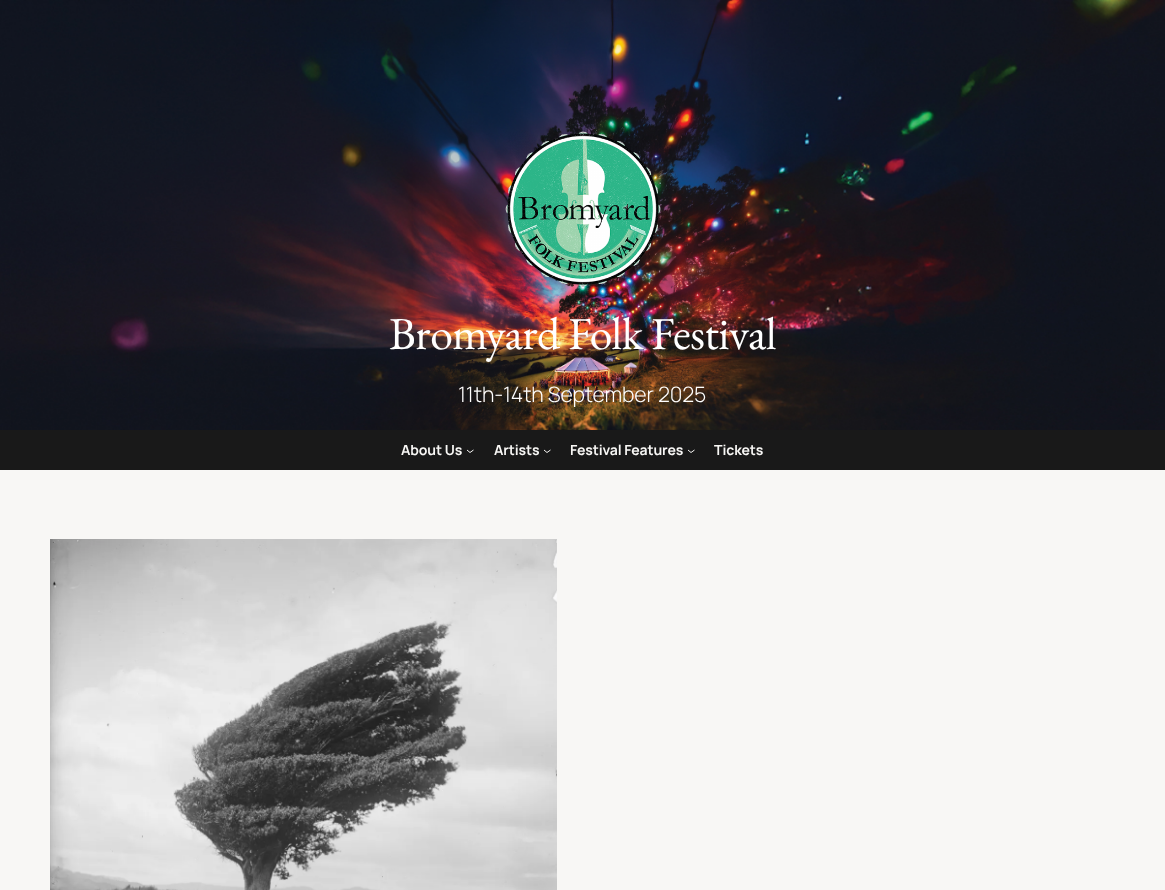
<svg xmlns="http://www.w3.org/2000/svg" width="1165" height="890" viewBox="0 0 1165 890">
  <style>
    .t1 { font: 45.75px EB Garamond; letter-spacing: -0.5px; fill: #fff; }
    .t2 { font: 300 21.25px Manrope; letter-spacing: -0.1px; fill: #fff; }
    .t3 { font: bold 14px Manrope; letter-spacing: -0.1px; fill: #f8f7f5; }
  </style>
  <rect width="100%" height="100%" fill="#f8f7f5"/>
  <image x="0" y="0" width="1165" height="430" href="images/1.png"/>
  <image x="505" y="131" width="156" height="156" href="images/2.png"/>
  <text x="389" y="349" class="t1">Bromyard Folk Festival</text>
  <text x="458" y="402" class="t2">11th-14th September 2025</text>
  <rect x="0" y="430" width="1165" height="40" fill="#191919"/>
  <text x="401" y="455" class="t3">About Us</text>
  <path d="M467 450L470 452.5L473.5 450" fill="none" stroke="#f8f7f5"/>
  <text x="494" y="455" class="t3">Artists</text>
  <path d="M544 450L547 452.5L550.5 450" fill="none" stroke="#f8f7f5"/>
  <text x="570" y="455" class="t3">Festival Features</text>
  <path d="M688 450L691 452.5L694.5 450" fill="none" stroke="#f8f7f5"/>
  <text x="714" y="455" class="t3">Tickets</text>
  <image x="50" y="539" width="507" height="351" href="images/3.png"/>
</svg>
